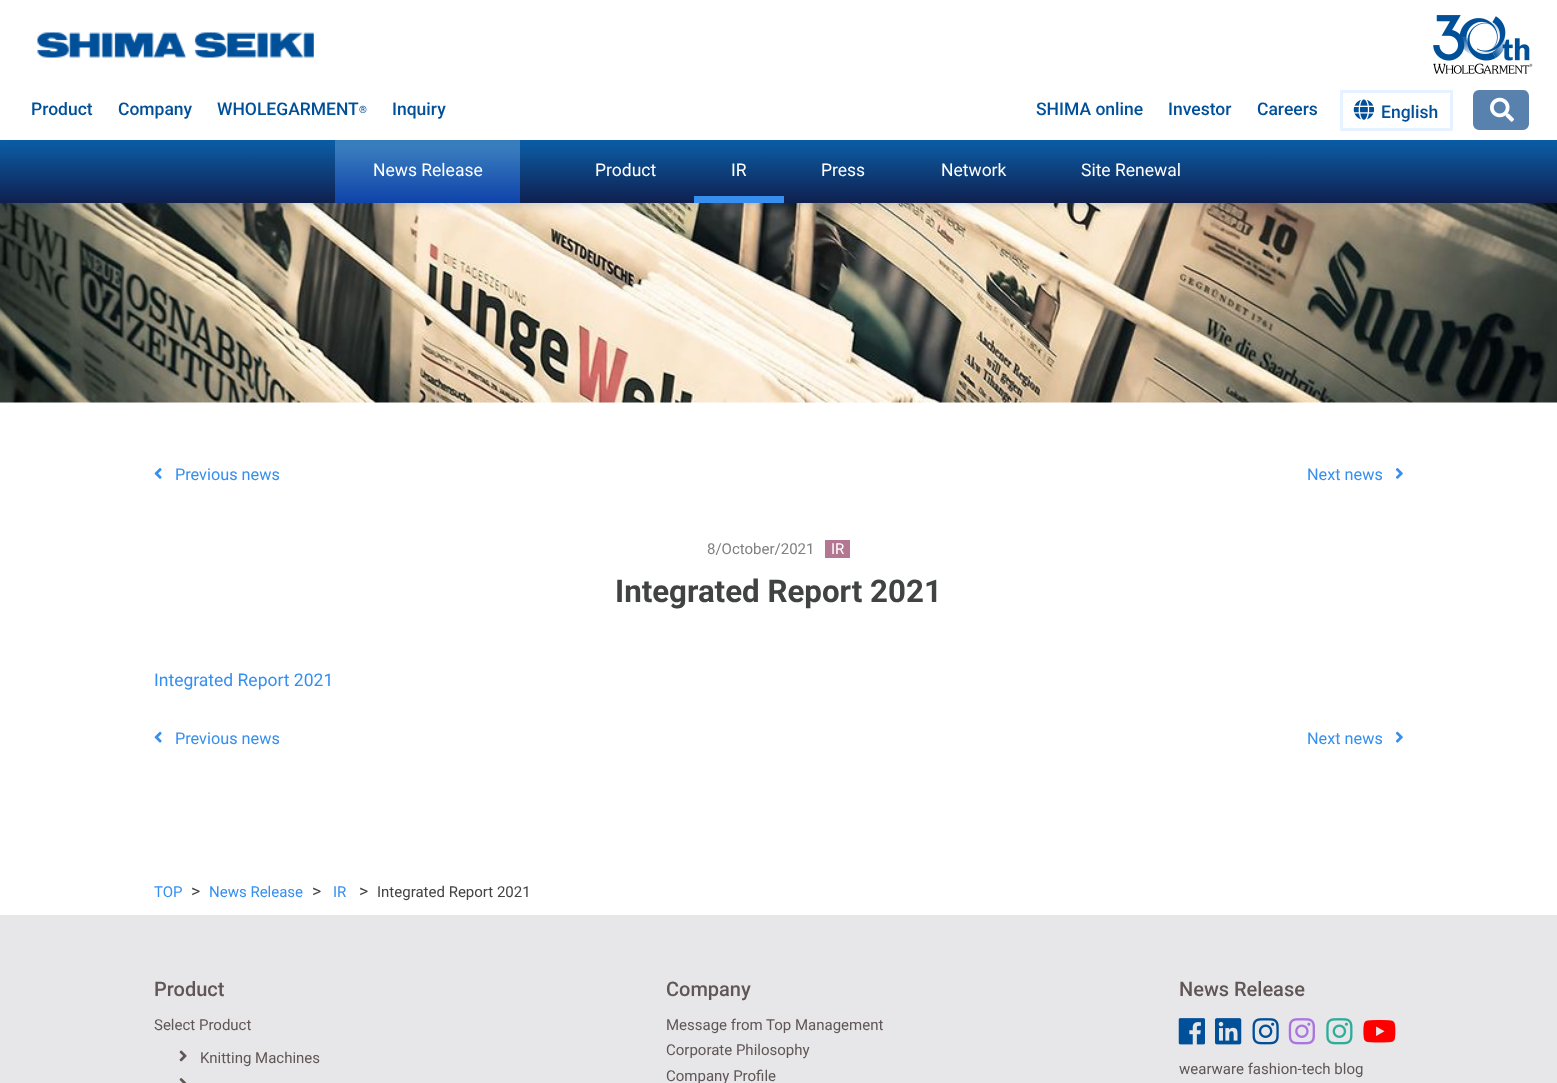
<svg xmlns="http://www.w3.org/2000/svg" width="1557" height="1083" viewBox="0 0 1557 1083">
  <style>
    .t1 { font: 500 17.5px Roboto; fill: #004f99; }
    .t2 { font: 10px Roboto; fill: #004f99; }
    .t3 { font: 16.25px Roboto; fill: #368fef; }
    .t4 { font: 15px Roboto; fill: #808080; }
    .t5 { font: 15px Roboto; fill: #fff; }
    .t6 { font: bold 31.25px Roboto; fill: #414242; }
    .t7 { font: 17.5px Roboto; fill: #368fef; }
    .t8 { font: 15px Roboto; fill: #368fef; }
    .t9 { font: 17.5px Roboto; fill: #414242; }
    .t10 { font: 15px Roboto; fill: #414242; }
    .t11 { font: 500 20px Roboto; fill: #605655; }
    .t12 { font: 15px Roboto; fill: #605655; }
    .t13 { font: 17.5px Roboto; fill: #fff; }
  </style>
  <defs>
    <linearGradient id="g1" gradientUnits="userSpaceOnUse" x1="779" y1="140" x2="779" y2="203"><stop offset="0" stop-color="#0b5fa8"/><stop offset="1" stop-color="#0f204f"/></linearGradient>
    <linearGradient id="g2" gradientUnits="userSpaceOnUse" x1="428" y1="140" x2="428" y2="203"><stop offset="0" stop-color="#0b5fa8"/><stop offset="0" stop-color="#3f85c1"/><stop offset="1" stop-color="#0f43aa"/></linearGradient>
  </defs>
  <rect width="100%" height="100%" fill="#fff"/>
  <image x="0" y="203" width="1557" height="200" href="images/6.png"/>
  <rect x="0" y="144" width="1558" height="62" fill="#004f9924" filter="blur(3px)"/>
  <rect x="0" y="140" width="1557" height="63" fill="url(#g1)"/>
  <rect x="335" y="140" width="185" height="63" fill="url(#g2)"/>
  <rect x="0" y="4" width="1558" height="140" fill="#004f9924" filter="blur(3px)"/>
  <rect x="0" y="0" width="1557" height="140" fill="#fff"/>
  <image x="1459" y="16" width="47" height="45" href="images/2.png"/>
  <image x="1433" y="15" width="100" height="59" href="images/1.png"/>
  <image x="37" y="32" width="277" height="26" href="images/3.png"/>
  <text x="31" y="115" class="t1">Product</text>
  <text x="118" y="115" class="t1">Company</text>
  <text x="217" y="115" class="t1">WHOLEGARMENT</text>
  <text x="359" y="113" class="t2">®</text>
  <text x="392" y="115" class="t1">Inquiry</text>
  <text x="1036" y="115" class="t1">SHIMA online</text>
  <text x="1168" y="115" class="t1">Investor</text>
  <text x="1257" y="115" class="t1">Careers</text>
  <rect x="1341.5" y="91.5" width="110" height="38" fill="none" stroke="#e6f2ff" stroke-width="3"/>
  <image x="1353" y="99" width="22" height="21" href="images/4.png"/>
  <text x="1381" y="118" class="t1">English</text>
  <rect x="1474.5" y="91.5" width="53" height="37" rx="4.5" fill="#5881ad" stroke="#5881ad" stroke-width="3"/>
  <image x="1490" y="97" width="24" height="25" href="images/5.png"/>
  <image x="154" y="468" width="8" height="11" href="images/7.png"/>
  <text x="175" y="480" class="t3">Previous news</text>
  <text x="1307" y="480" class="t3">Next news</text>
  <image x="1395" y="468" width="8" height="11" href="images/8.png"/>
  <text x="707" y="554" class="t4">8/October/2021</text>
  <rect x="825" y="540" width="25" height="18" fill="#b37792"/>
  <text x="831" y="554" class="t5">IR</text>
  <text x="615" y="602" class="t6">Integrated Report 2021</text>
  <text x="154" y="686" class="t7">Integrated Report 2021</text>
  <image x="154" y="731" width="8" height="12" href="images/9.png"/>
  <text x="175" y="744" class="t3">Previous news</text>
  <text x="1307" y="744" class="t3">Next news</text>
  <image x="1395" y="731" width="8" height="12" href="images/10.png"/>
  <text x="154" y="897" class="t8">TOP</text>
  <text x="191" y="897" class="t9">&gt;</text>
  <text x="209" y="897" class="t8">News Release</text>
  <text x="312" y="897" class="t9">&gt;</text>
  <text x="333" y="897" class="t8">IR</text>
  <text x="359" y="897" class="t9">&gt;</text>
  <text x="377" y="897" class="t10">Integrated Report 2021</text>
  <rect x="0" y="915" width="1557" height="168" fill="#e7e7e9"/>
  <text x="154" y="996" class="t11">Product</text>
  <text x="154" y="1030" class="t12">Select Product</text>
  <image x="179" y="1050" width="8" height="12" href="images/11.png"/>
  <text x="200" y="1063" class="t12">Knitting Machines</text>
  <image x="179" y="1078" width="8" height="5" href="images/12.png"/>
  <text x="666" y="996" class="t11">Company</text>
  <text x="666" y="1030" class="t12">Message from Top Management</text>
  <text x="666" y="1055" class="t12">Corporate Philosophy</text>
  <text x="666" y="1081" class="t12">Company Profile</text>
  <text x="1179" y="996" class="t11">News Release</text>
  <image x="1178" y="1018" width="27" height="27" href="images/13.png"/>
  <image x="1215" y="1018" width="27" height="27" href="images/14.png"/>
  <image x="1252" y="1018" width="27" height="27" href="images/15.png"/>
  <image x="1288" y="1018" width="27" height="27" href="images/16.png"/>
  <image x="1326" y="1018" width="27" height="27" href="images/17.png"/>
  <image x="1363" y="1020" width="33" height="23" href="images/18.png"/>
  <text x="1179" y="1074" class="t12">wearware fashion-tech blog</text>
  <text x="373" y="176" class="t13">News Release</text>
  <text x="595" y="176" class="t13">Product</text>
  <rect x="694" y="196" width="90" height="7" fill="#368fef"/>
  <text x="731" y="176" class="t13">IR</text>
  <text x="821" y="176" class="t13">Press</text>
  <text x="941" y="176" class="t13">Network</text>
  <text x="1081" y="176" class="t13">Site Renewal</text>
</svg>
